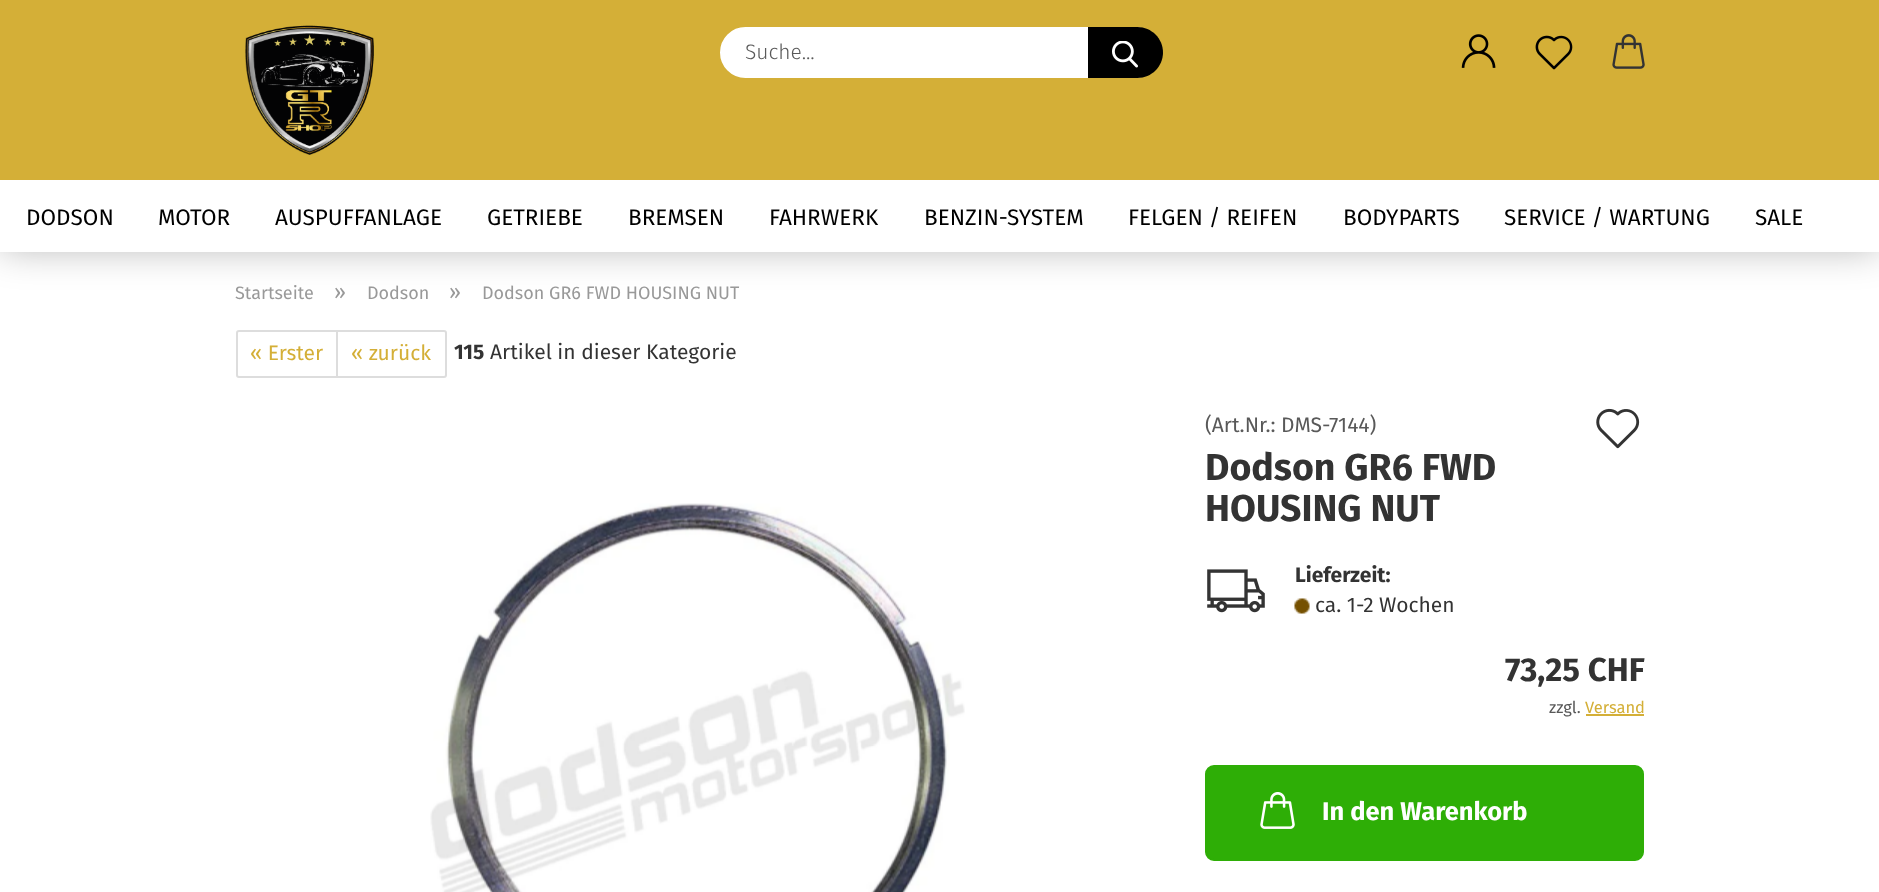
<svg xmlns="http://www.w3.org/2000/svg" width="1879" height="892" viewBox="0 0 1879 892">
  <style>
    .t1 { font: 300 21px Fira Sans; fill: #595959; }
    .t2 { font: 22.5px Fira Sans; fill: #000; }
    .t3 { font: 18px Fira Sans; fill: #999; }
    .t4 { font: 21px Fira Sans; fill: #999; }
    .t5 { font: 21px Fira Sans; fill: #d4af37; }
    .t6 { font: bold 21px Fira Sans; fill: #333; }
    .t7 { font: 21px Fira Sans; fill: #333; }
    .t8 { font: 21px Fira Sans; fill: #595959; }
    .t9 { font: bold 37.5px Fira Sans; fill: #333; }
    .t10 { font: bold 33px Fira Sans; fill: #333; }
    .t11 { font: 16.5px Fira Sans; fill: #595959; }
    .t12 { font: 16.5px Fira Sans; fill: #d4af37; }
    .t13 { font: bold 25.5px Fira Sans; fill: #fff; }
  </style>
  <rect width="100%" height="100%" fill="#fff"/>
  <rect x="0" y="0" width="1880" height="248" fill="#0000004d" filter="blur(19px)"/>
  <rect x="0" y="0" width="1879" height="180" fill="#d4af37"/>
  <image x="245" y="25" width="129" height="130" href="images/1.png"/>
  <rect x="721.5" y="28.5" width="437" height="48" rx="24" fill="#fff" stroke="#fff" stroke-width="3"/>
  <text x="745" y="59" class="t1">Suche...</text>
  <path d="M1088 27H1137.5C1151.5 27 1163 38.5 1163 52.5C1163 66.5 1151.5 78 1137.5 78H1088Z" fill="#000"/>
  <image x="1112" y="41" width="26" height="27" href="images/2.png"/>
  <image x="1461" y="34" width="35" height="34" href="images/3.png"/>
  <image x="1535" y="35" width="38" height="35" href="images/4.png"/>
  <image x="1612" y="34" width="33" height="35" href="images/5.png"/>
  <rect x="0" y="180" width="1879" height="72" fill="#fff"/>
  <text x="26" y="225" class="t2">DODSON</text>
  <text x="158" y="225" class="t2">MOTOR</text>
  <text x="275" y="225" class="t2">AUSPUFFANLAGE</text>
  <text x="487" y="225" class="t2">GETRIEBE</text>
  <text x="628" y="225" class="t2">BREMSEN</text>
  <text x="769" y="225" class="t2">FAHRWERK</text>
  <text x="924" y="225" class="t2">BENZIN-SYSTEM</text>
  <text x="1128" y="225" class="t2">FELGEN / REIFEN</text>
  <text x="1343" y="225" class="t2">BODYPARTS</text>
  <text x="1504" y="225" class="t2">SERVICE / WARTUNG</text>
  <text x="1755" y="225" class="t2">SALE</text>
  <text x="235" y="299" class="t3">Startseite</text>
  <text x="334" y="299" class="t4">»</text>
  <text x="367" y="299" class="t3">Dodson</text>
  <text x="449" y="299" class="t4">»</text>
  <text x="482" y="299" class="t3">Dodson GR6 FWD HOUSING NUT</text>
  <path d="M239 331H337V377H239C238 377 237 376 237 375V333C237 332 238 331 239 331Z" fill="none" stroke="#ddd" stroke-width="2"/>
  <text x="250" y="360" class="t5">« Erster</text>
  <path d="M337 331H444C445 331 446 332 446 333V375C446 376 445 377 444 377H337Z" fill="#fff" stroke="#ddd" stroke-width="2"/>
  <text x="351" y="360" class="t5">« zurück</text>
  <text x="454" y="359" class="t6">115</text>
  <text x="490" y="359" class="t7">Artikel in dieser Kategorie</text>
  <image x="430" y="503" width="535" height="389" href="images/6.png"/>
  <text x="1205" y="432" class="t8">(Art.Nr.: DMS-7144)</text>
  <image x="1596" y="408" width="44" height="41" href="images/7.png"/>
  <text x="1205" y="480" class="t9">Dodson GR6 FWD</text>
  <text x="1205" y="521" class="t9">HOUSING NUT</text>
  <image x="1207" y="569" width="58" height="44" href="images/8.png"/>
  <text x="1295" y="582" class="t6">Lieferzeit:</text>
  <image x="1294" y="598" width="16" height="16" href="images/9.png"/>
  <text x="1315" y="612" class="t7">ca. 1-2 Wochen</text>
  <text x="1505" y="681" class="t10">73,25 CHF</text>
  <text x="1549" y="713" class="t11">zzgl.</text>
  <text x="1585" y="713" class="t12">Versand</text>
  <rect x="1586" y="714" width="58" height="2" fill="#d4af37"/>
  <rect x="1206" y="766" width="437" height="94" rx="8" fill="#2eae06" stroke="#2eae06" stroke-width="2"/>
  <image x="1260" y="792" width="35" height="37" href="images/10.png"/>
  <text x="1322" y="820" class="t13">In den Warenkorb</text>
</svg>
